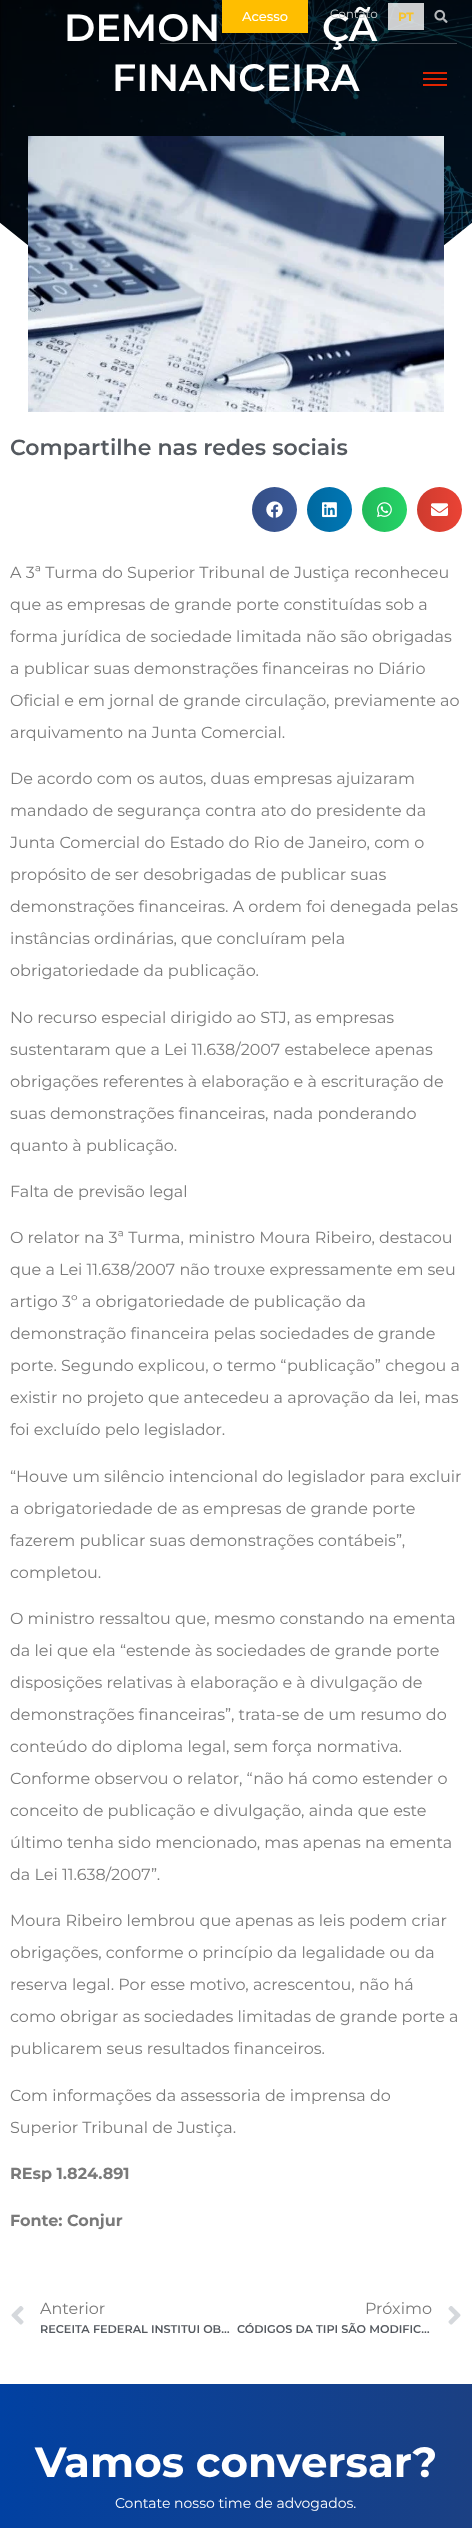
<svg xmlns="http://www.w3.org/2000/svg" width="472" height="2528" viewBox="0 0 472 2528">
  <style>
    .t1 { font: 600 38px Montserrat; fill: #fff; }
    .t2 { font: 600 22px Montserrat; fill: #54595f; }
    .t3 { font: 16px Montserrat; fill: #7a7a7a; }
    .t4 { font: bold 16px Montserrat; fill: #7a7a7a; }
    .t5 { font: 600 11.25px Montserrat; fill: #54595f; }
    .t6 { font: 500 13px Montserrat; fill: #fff; }
    .t7 { font: 12px Montserrat; fill: #cacecf; }
    .t8 { font: bold 12px Montserrat; fill: #f7c32b; }
    .t9 { font: bold 42px Montserrat; fill: #fff; }
    .t10 { font: 14px Montserrat; fill: #fff; }
  </style>
  <defs>
    <linearGradient id="g1" gradientUnits="userSpaceOnUse" x1="252" y1="510" x2="297" y2="510"><stop offset="0" stop-color="#000" stop-opacity="0.12"/><stop offset="1" stop-color="#000" stop-opacity="0"/></linearGradient>
    <linearGradient id="g2" gradientUnits="userSpaceOnUse" x1="307" y1="510" x2="352" y2="510"><stop offset="0" stop-color="#000" stop-opacity="0.12"/><stop offset="1" stop-color="#000" stop-opacity="0"/></linearGradient>
    <linearGradient id="g3" gradientUnits="userSpaceOnUse" x1="362" y1="510" x2="407" y2="510"><stop offset="0" stop-color="#000" stop-opacity="0.12"/><stop offset="1" stop-color="#000" stop-opacity="0"/></linearGradient>
    <linearGradient id="g4" gradientUnits="userSpaceOnUse" x1="417" y1="510" x2="462" y2="510"><stop offset="0" stop-color="#000" stop-opacity="0.12"/><stop offset="1" stop-color="#000" stop-opacity="0"/></linearGradient>
    <linearGradient id="g5" gradientUnits="userSpaceOnUse" x1="472" y1="2528" x2="0" y2="2528"><stop offset="0" stop-color="#1b4083"/><stop offset="1" stop-color="#0141a2"/></linearGradient>
  </defs>
  <rect width="100%" height="100%" fill="#fff"/>
  <image x="0" y="0" width="472" height="246" href="images/1.png"/>
  <text x="64" y="41" class="t1">DEMON</text>
  <text x="322" y="41" class="t1">ÇÃ</text>
  <text x="112" y="91" class="t1">FINANCEIRA</text>
  <path d="M236 412L-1 222V423H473V222Z" fill="#fff"/>
  <image x="28" y="136" width="416" height="276" href="images/2.png"/>
  <text x="10" y="455" class="t2">Compartilhe nas redes sociais</text>
  <circle cx="274.5" cy="509.5" r="22.5" fill="#3b5998"/>
  <circle cx="274.5" cy="509.5" r="22.5" fill="url(#g1)"/>
  <image x="266" y="501" width="17" height="17" href="images/3.png"/>
  <circle cx="329.5" cy="509.5" r="22.5" fill="#0077b5"/>
  <circle cx="329.5" cy="509.5" r="22.5" fill="url(#g2)"/>
  <image x="322" y="502" width="15" height="16" href="images/4.png"/>
  <circle cx="384.5" cy="509.5" r="22.5" fill="#25d366"/>
  <circle cx="384.5" cy="509.5" r="22.5" fill="url(#g3)"/>
  <image x="377" y="502" width="15" height="15" href="images/5.png"/>
  <circle cx="439.5" cy="509.5" r="22.5" fill="#ea4335"/>
  <circle cx="439.5" cy="509.5" r="22.5" fill="url(#g4)"/>
  <image x="431" y="503" width="17" height="13" href="images/6.png"/>
  <text x="10" y="578" class="t3">A 3ª Turma do Superior Tribunal de Justiça reconheceu</text>
  <text x="10" y="610" class="t3">que as empresas de grande porte constituídas sob a</text>
  <text x="10" y="642" class="t3">forma jurídica de sociedade limitada não são obrigadas</text>
  <text x="10" y="674" class="t3">a publicar suas demonstrações financeiras no Diário</text>
  <text x="10" y="706" class="t3">Oficial e em jornal de grande circulação, previamente ao</text>
  <text x="10" y="738" class="t3">arquivamento na Junta Comercial.</text>
  <text x="10" y="784" class="t3">De acordo com os autos, duas empresas ajuizaram</text>
  <text x="10" y="816" class="t3">mandado de segurança contra ato do presidente da</text>
  <text x="10" y="848" class="t3">Junta Comercial do Estado do Rio de Janeiro, com o</text>
  <text x="10" y="880" class="t3">propósito de ser desobrigadas de publicar suas</text>
  <text x="10" y="912" class="t3">demonstrações financeiras. A ordem foi denegada pelas</text>
  <text x="10" y="944" class="t3">instâncias ordinárias, que concluíram pela</text>
  <text x="10" y="976" class="t3">obrigatoriedade da publicação.</text>
  <text x="10" y="1023" class="t3">No recurso especial dirigido ao STJ, as empresas</text>
  <text x="10" y="1055" class="t3">sustentaram que a Lei 11.638/2007 estabelece apenas</text>
  <text x="10" y="1087" class="t3">obrigações referentes à elaboração e à escrituração de</text>
  <text x="10" y="1119" class="t3">suas demonstrações financeiras, nada ponderando</text>
  <text x="10" y="1151" class="t3">quanto à publicação.</text>
  <text x="10" y="1197" class="t3">Falta de previsão legal</text>
  <text x="10" y="1243" class="t3">O relator na 3ª Turma, ministro Moura Ribeiro, destacou</text>
  <text x="10" y="1275" class="t3">que a Lei 11.638/2007 não trouxe expressamente em seu</text>
  <text x="10" y="1307" class="t3">artigo 3º a obrigatoriedade de publicação da</text>
  <text x="10" y="1339" class="t3">demonstração financeira pelas sociedades de grande</text>
  <text x="10" y="1371" class="t3">porte. Segundo explicou, o termo “publicação” chegou a</text>
  <text x="10" y="1403" class="t3">existir no projeto que antecedeu a aprovação da lei, mas</text>
  <text x="10" y="1435" class="t3">foi excluído pelo legislador.</text>
  <text x="10" y="1482" class="t3">“Houve um silêncio intencional do legislador para excluir</text>
  <text x="10" y="1514" class="t3">a obrigatoriedade de as empresas de grande porte</text>
  <text x="10" y="1546" class="t3">fazerem publicar suas demonstrações contábeis”,</text>
  <text x="10" y="1578" class="t3">completou.</text>
  <text x="10" y="1624" class="t3">O ministro ressaltou que, mesmo constando na ementa</text>
  <text x="10" y="1656" class="t3">da lei que ela “estende às sociedades de grande porte</text>
  <text x="10" y="1688" class="t3">disposições relativas à elaboração e à divulgação de</text>
  <text x="10" y="1720" class="t3">demonstrações financeiras”, trata-se de um resumo do</text>
  <text x="10" y="1752" class="t3">conteúdo do diploma legal, sem força normativa.</text>
  <text x="10" y="1784" class="t3">Conforme observou o relator, “não há como estender o</text>
  <text x="10" y="1816" class="t3">conceito de publicação e divulgação, ainda que este</text>
  <text x="10" y="1848" class="t3">último tenha sido mencionado, mas apenas na ementa</text>
  <text x="10" y="1880" class="t3">da Lei 11.638/2007”.</text>
  <text x="10" y="1926" class="t3">Moura Ribeiro lembrou que apenas as leis podem criar</text>
  <text x="10" y="1958" class="t3">obrigações, conforme o princípio da legalidade ou da</text>
  <text x="10" y="1990" class="t3">reserva legal. Por esse motivo, acrescentou, não há</text>
  <text x="10" y="2022" class="t3">como obrigar as sociedades limitadas de grande porte a</text>
  <text x="10" y="2054" class="t3">publicarem seus resultados financeiros.</text>
  <text x="10" y="2101" class="t3">Com informações da assessoria de imprensa do</text>
  <text x="10" y="2133" class="t3">Superior Tribunal de Justiça.</text>
  <text x="10" y="2179" class="t4">REsp 1.824.891</text>
  <text x="10" y="2226" class="t4">Fonte: Conjur</text>
  <image x="11" y="2306" width="13" height="19" href="images/7.png"/>
  <text x="40" y="2314" class="t3">Anterior</text>
  <text x="40" y="2333" class="t5">RECEITA FEDERAL INSTITUI OB…</text>
  <text x="365" y="2314" class="t3">Próximo</text>
  <text x="237" y="2333" class="t5">CÓDIGOS DA TIPI SÃO MODIFIC…</text>
  <image x="448" y="2306" width="13" height="19" href="images/8.png"/>
  <rect x="222" y="0" width="86" height="33" fill="#ffbe00"/>
  <text x="242" y="21" class="t6">Acesso</text>
  <text x="330" y="18" class="t7">Contato</text>
  <rect x="388" y="3" width="36" height="27" fill="#ffffffcc"/>
  <text x="398" y="21" class="t8">PT</text>
  <image x="434" y="9" width="14" height="14" href="images/9.png"/>
  <rect x="160" y="43" width="297" height="1" fill="#ffffff3d"/>
  <rect x="423" y="78" width="24" height="2" fill="#e22400"/>
  <rect x="423" y="72" width="24" height="2" fill="#e22400"/>
  <rect x="423" y="84" width="24" height="2" fill="#e22400"/>
  <rect x="0" y="2384" width="472" height="144" fill="url(#g5)"/>
  <text x="35" y="2477" class="t9">Vamos conversar?</text>
  <text x="115" y="2508" class="t10">Contate nosso time de advogados.</text>
</svg>
